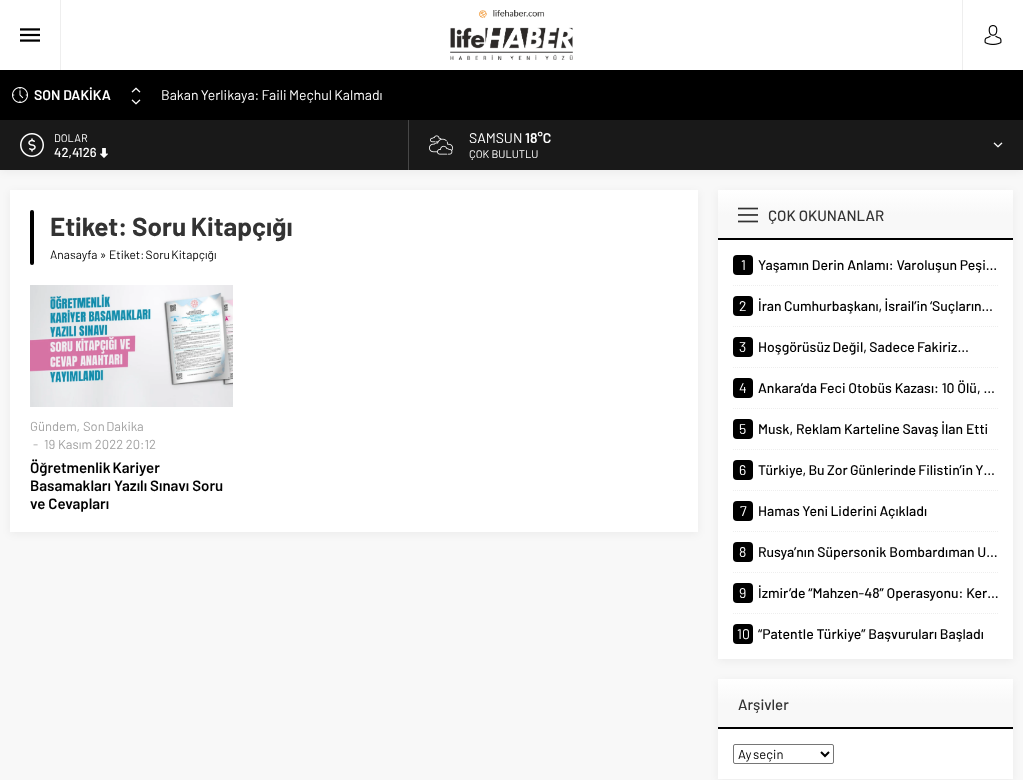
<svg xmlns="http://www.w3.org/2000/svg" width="1023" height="780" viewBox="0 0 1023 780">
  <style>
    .t1 { font: 600 14px Barlow; fill: #fff; }
    .t2 { font: 14px Barlow; fill: #fff; }
    .t3 { font: 11px Barlow; fill: #fff; }
    .t4 { font: 500 13px Barlow; fill: #fff; }
    .t5 { font: bold 26px Barlow; fill: #333; }
    .t6 { font: 12px Barlow; fill: #000; }
    .t7 { font: 13px Barlow; fill: #a2a2a2; }
    .t8 { font: 600 15px Barlow; fill: #000; }
    .t9 { font: 500 15px Barlow; fill: #333; }
    .t10 { font: 500 14px Barlow; fill: #000; }
    .t11 { font: 13px Barlow; fill: #000; }
  </style>
  <defs>
    <linearGradient id="g1" gradientUnits="userSpaceOnUse" x1="866" y1="190" x2="866" y2="240"><stop offset="0" stop-color="#fff"/><stop offset="0.5" stop-color="#f8f8f8"/></linearGradient>
    <linearGradient id="g2" gradientUnits="userSpaceOnUse" x1="866" y1="679" x2="866" y2="729"><stop offset="0" stop-color="#fff"/><stop offset="0.5" stop-color="#f8f8f8"/></linearGradient>
  </defs>
  <rect width="100%" height="100%" fill="#f8f8f8"/>
  <rect x="0" y="72" width="1023" height="100" fill="#0000000d" filter="blur(4px)"/>
  <rect x="0" y="0" width="1023" height="70" fill="#fff"/>
  <rect x="60" y="0" width="1" height="70" fill="#eee"/>
  <image x="20" y="28" width="20" height="14" href="images/1.png"/>
  <image x="450" y="10" width="123" height="50" href="images/2.png"/>
  <rect x="962" y="0" width="1" height="70" fill="#eee"/>
  <image x="984" y="25" width="18" height="20" href="images/3.png"/>
  <rect x="0" y="70" width="1023" height="50" fill="#000"/>
  <image x="12" y="87" width="16" height="16" href="images/4.png"/>
  <text x="34" y="100" class="t1">SON DAKİKA</text>
  <image x="131" y="87" width="10" height="6" href="images/5.png"/>
  <image x="131" y="99" width="10" height="6" href="images/6.png"/>
  <text x="161" y="100" word-spacing="-0.5" class="t2">Bakan Yerlikaya: Faili Meçhul Kalmadı</text>
  <rect x="0" y="120" width="408" height="50" fill="#191919"/>
  <rect x="408" y="120" width="1" height="50" fill="#474747"/>
  <image x="20" y="133" width="24" height="24" href="images/7.png"/>
  <text x="54" y="142" class="t3">DOLAR</text>
  <text x="54" y="157" class="t4">42,4126</text>
  <image x="100" y="148" width="8" height="10" href="images/8.png"/>
  <rect x="409" y="120" width="614" height="50" fill="#191919"/>
  <image x="429" y="135" width="24" height="20" href="images/9.png"/>
  <text x="469" y="143" class="t2">SAMSUN</text>
  <text x="525" y="143" class="t1">18°C</text>
  <text x="469" y="158" class="t3">ÇOK BULUTLU</text>
  <image x="993" y="142" width="10" height="6" href="images/10.png"/>
  <rect x="10" y="192" width="688" height="342" fill="#0000000d" filter="blur(4px)"/>
  <rect x="10" y="190" width="688" height="342" fill="#fff"/>
  <rect x="30" y="210" width="4" height="55" rx="2" fill="#000"/>
  <text x="50" y="236" class="t5">Etiket:</text>
  <text x="132" y="236" word-spacing="-0.5" class="t5">Soru Kitapçığı</text>
  <text x="50" y="259" class="t6">Anasayfa »</text>
  <text x="109" y="259" word-spacing="-1" class="t6">Etiket: Soru Kitapçığı</text>
  <image x="30" y="285" width="203" height="122" href="images/11.png"/>
  <text x="30" y="431" class="t7">Gündem,</text>
  <text x="83" y="431" word-spacing="-1" class="t7">Son Dakika</text>
  <text x="33" y="449" class="t7">-</text>
  <text x="44" y="449" class="t7">19 Kasım 2022 20:12</text>
  <text x="30" y="473" word-spacing="-1" class="t8">Öğretmenlik Kariyer</text>
  <text x="30" y="491" class="t8">Basamakları Yazılı Sınavı Soru</text>
  <text x="30" y="509" class="t8">ve Cevapları</text>
  <rect x="718" y="192" width="295" height="469" fill="#0000000d" filter="blur(4px)"/>
  <rect x="718" y="240" width="295" height="419" fill="#fff"/>
  <rect x="718" y="190" width="295" height="48" fill="url(#g1)"/>
  <image x="738" y="207" width="20" height="16" href="images/12.png"/>
  <text x="768" y="221" class="t9">ÇOK OKUNANLAR</text>
  <rect x="718" y="238" width="295" height="2" fill="#000"/>
  <rect x="733" y="255" width="20" height="20" rx="4" fill="#000"/>
  <text x="741" y="270" class="t2">1</text>
  <text x="758" y="270" class="t10">Yaşamın Derin Anlamı: Varoluşun Peşi…</text>
  <path d="M733 285.5H998" fill="none" stroke="#eee" stroke-dasharray="1 1"/>
  <rect x="733" y="296" width="20" height="20" rx="4" fill="#000"/>
  <text x="739" y="311" class="t2">2</text>
  <text x="758" y="311" word-spacing="-0.5" class="t10">İran Cumhurbaşkanı, İsrail’in ‘Suçların…</text>
  <path d="M733 326.5H998" fill="none" stroke="#eee" stroke-dasharray="1 1"/>
  <rect x="733" y="337" width="20" height="20" rx="4" fill="#000"/>
  <text x="739" y="352" class="t2">3</text>
  <text x="758" y="352" word-spacing="-0.5" class="t10">Hoşgörüsüz Değil, Sadece Fakiriz…</text>
  <path d="M733 367.5H998" fill="none" stroke="#eee" stroke-dasharray="1 1"/>
  <rect x="733" y="378" width="20" height="20" rx="4" fill="#000"/>
  <text x="739" y="393" class="t2">4</text>
  <text x="758" y="393" class="t10">Ankara’da Feci Otobüs Kazası: 10 Ölü, …</text>
  <path d="M733 408.5H998" fill="none" stroke="#eee" stroke-dasharray="1 1"/>
  <rect x="733" y="419" width="20" height="20" rx="4" fill="#000"/>
  <text x="739" y="434" class="t2">5</text>
  <text x="758" y="434" class="t10">Musk, Reklam Karteline Savaş İlan Etti</text>
  <path d="M733 449.5H998" fill="none" stroke="#eee" stroke-dasharray="1 1"/>
  <rect x="733" y="460" width="20" height="20" rx="4" fill="#000"/>
  <text x="739" y="475" class="t2">6</text>
  <text x="758" y="475" word-spacing="-0.5" class="t10">Türkiye, Bu Zor Günlerinde Filistin’in Y…</text>
  <path d="M733 490.5H998" fill="none" stroke="#eee" stroke-dasharray="1 1"/>
  <rect x="733" y="501" width="20" height="20" rx="4" fill="#000"/>
  <text x="740" y="516" class="t2">7</text>
  <text x="758" y="516" word-spacing="-0.5" class="t10">Hamas Yeni Liderini Açıkladı</text>
  <path d="M733 531.5H998" fill="none" stroke="#eee" stroke-dasharray="1 1"/>
  <rect x="733" y="542" width="20" height="20" rx="4" fill="#000"/>
  <text x="739" y="557" class="t2">8</text>
  <text x="758" y="557" class="t10">Rusya’nın Süpersonik Bombardıman U…</text>
  <path d="M733 572.5H998" fill="none" stroke="#eee" stroke-dasharray="1 1"/>
  <rect x="733" y="583" width="20" height="20" rx="4" fill="#000"/>
  <text x="739" y="598" class="t2">9</text>
  <text x="758" y="598" class="t10">İzmir’de “Mahzen-48” Operasyonu: Ker…</text>
  <path d="M733 613.5H998" fill="none" stroke="#eee" stroke-dasharray="1 1"/>
  <rect x="733" y="624" width="20" height="20" rx="4" fill="#000"/>
  <text x="737" y="639" class="t2">10</text>
  <text x="758" y="639" class="t10">“Patentle Türkiye” Başvuruları Başladı</text>
  <rect x="718" y="681" width="295" height="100" fill="#0000000d" filter="blur(4px)"/>
  <rect x="718" y="729" width="295" height="50" fill="#fff"/>
  <rect x="718" y="679" width="295" height="48" fill="url(#g2)"/>
  <text x="738" y="710" class="t9">Arşivler</text>
  <rect x="718" y="727" width="295" height="2" fill="#000"/>
  <rect x="733.5" y="744.5" width="100" height="19" rx="1.5" fill="none" stroke="#767676"/>
  <path d="M821 752L825 756L829 752" fill="none" stroke="#000" stroke-width="2"/>
  <text x="738" y="759" word-spacing="-1" class="t11">Ay seçin</text>
</svg>
